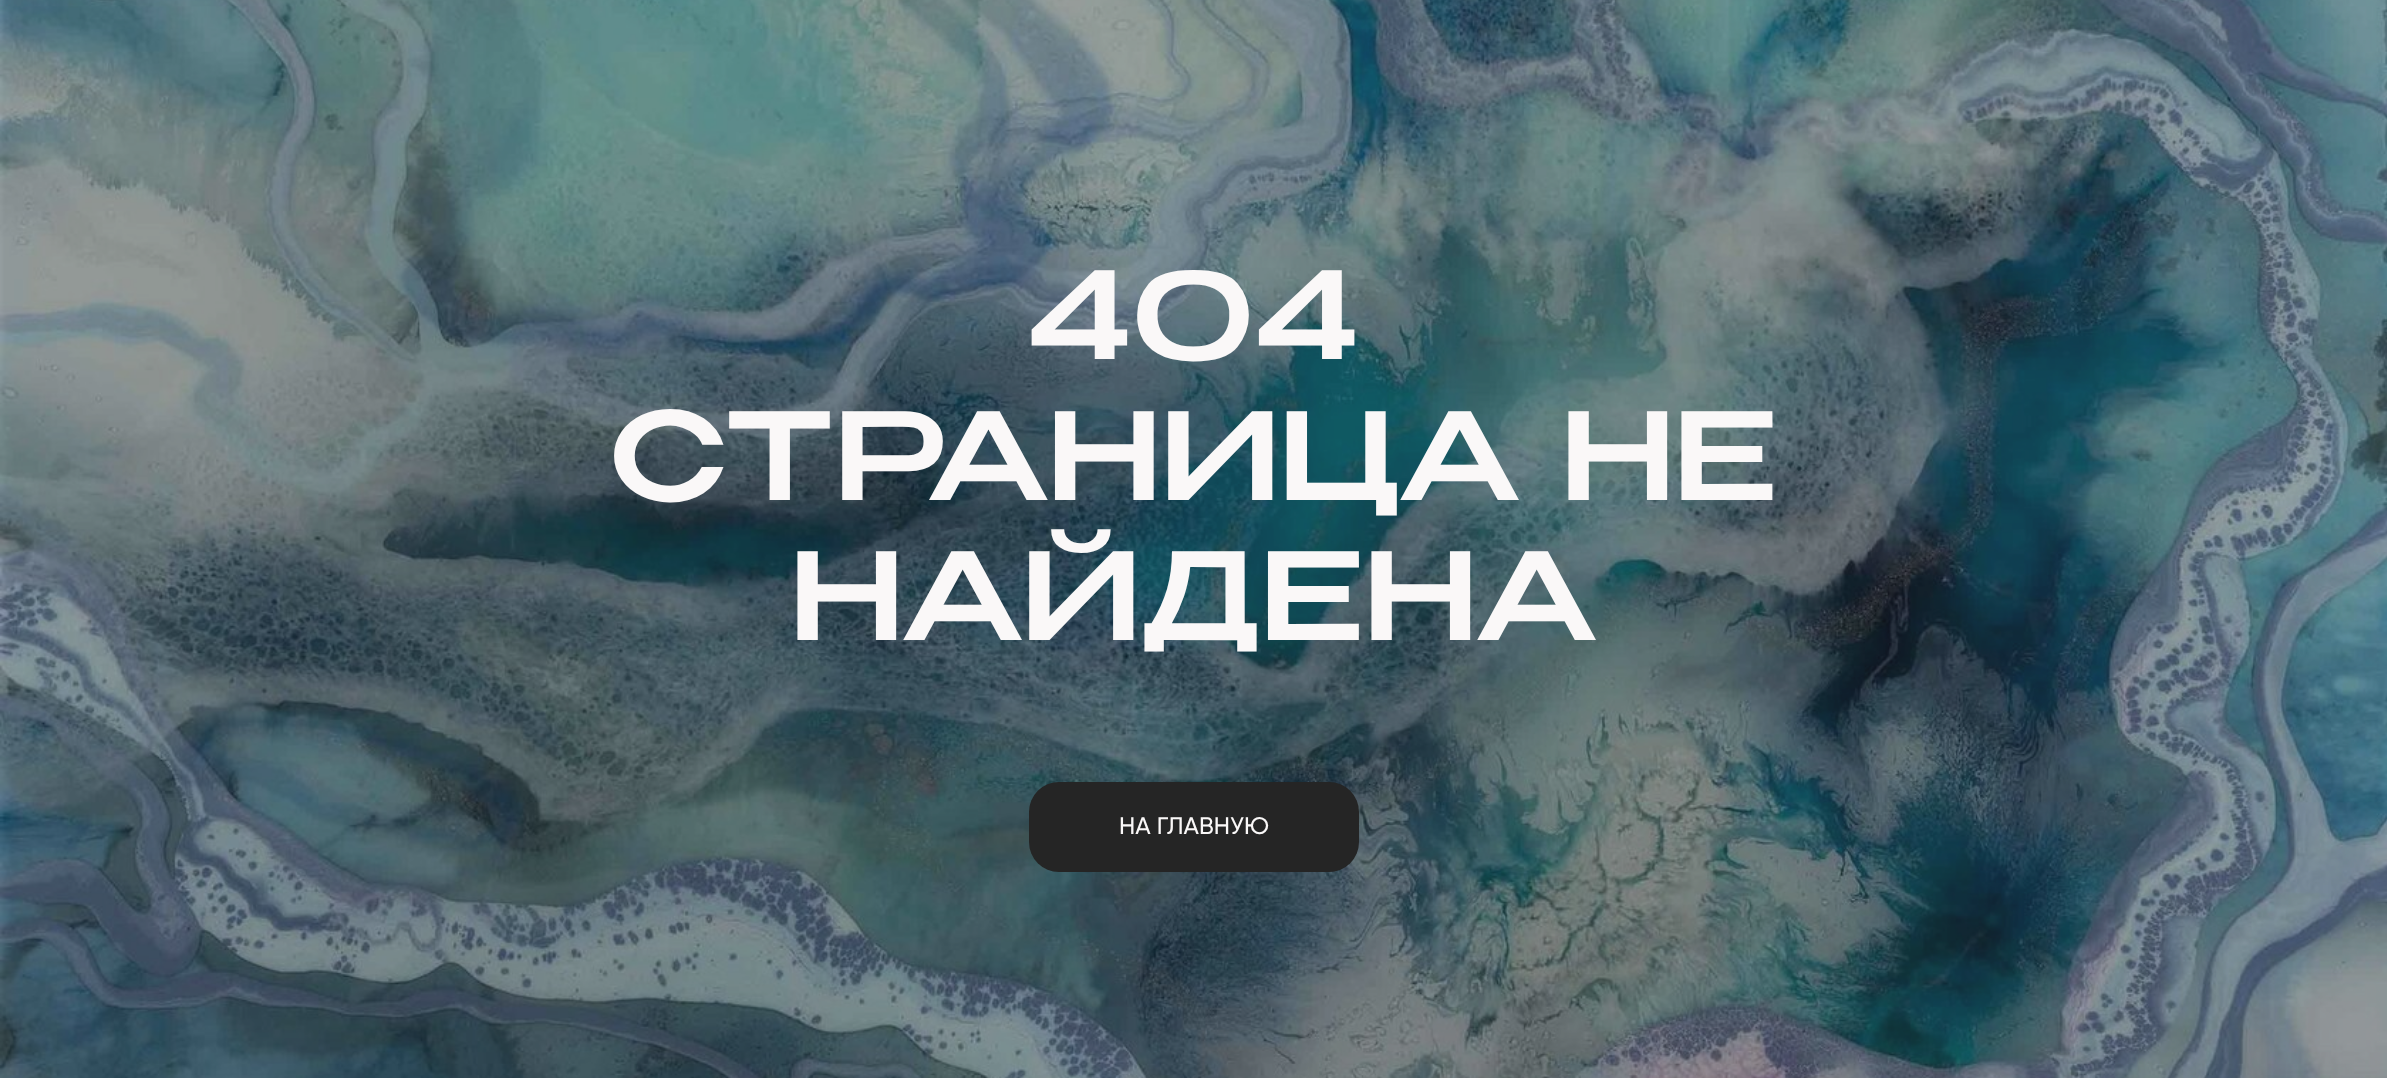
<svg xmlns="http://www.w3.org/2000/svg" width="2387" height="1078" viewBox="0 0 2387 1078">
  <style>
    .t1 { font: 500 120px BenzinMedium; letter-spacing: 1.5px; fill: #faf8f8; }
    .t2 { font: 500 24px Gilroy; fill: #faf8f8; }
  </style>
  <rect width="100%" height="100%" fill="#fff"/>
  <image x="0" y="0" width="2387" height="1078" href="images/1.png"/>
  <text x="1027" y="359" class="t1">404</text>
  <text x="610" y="500" class="t1">СТРАНИЦА НЕ</text>
  <text x="791" y="640" class="t1">НАЙДЕНА</text>
  <rect x="1029" y="782" width="330" height="90" rx="30" fill="#252525"/>
  <text x="1119" y="834" class="t2">НА ГЛАВНУЮ</text>
</svg>
